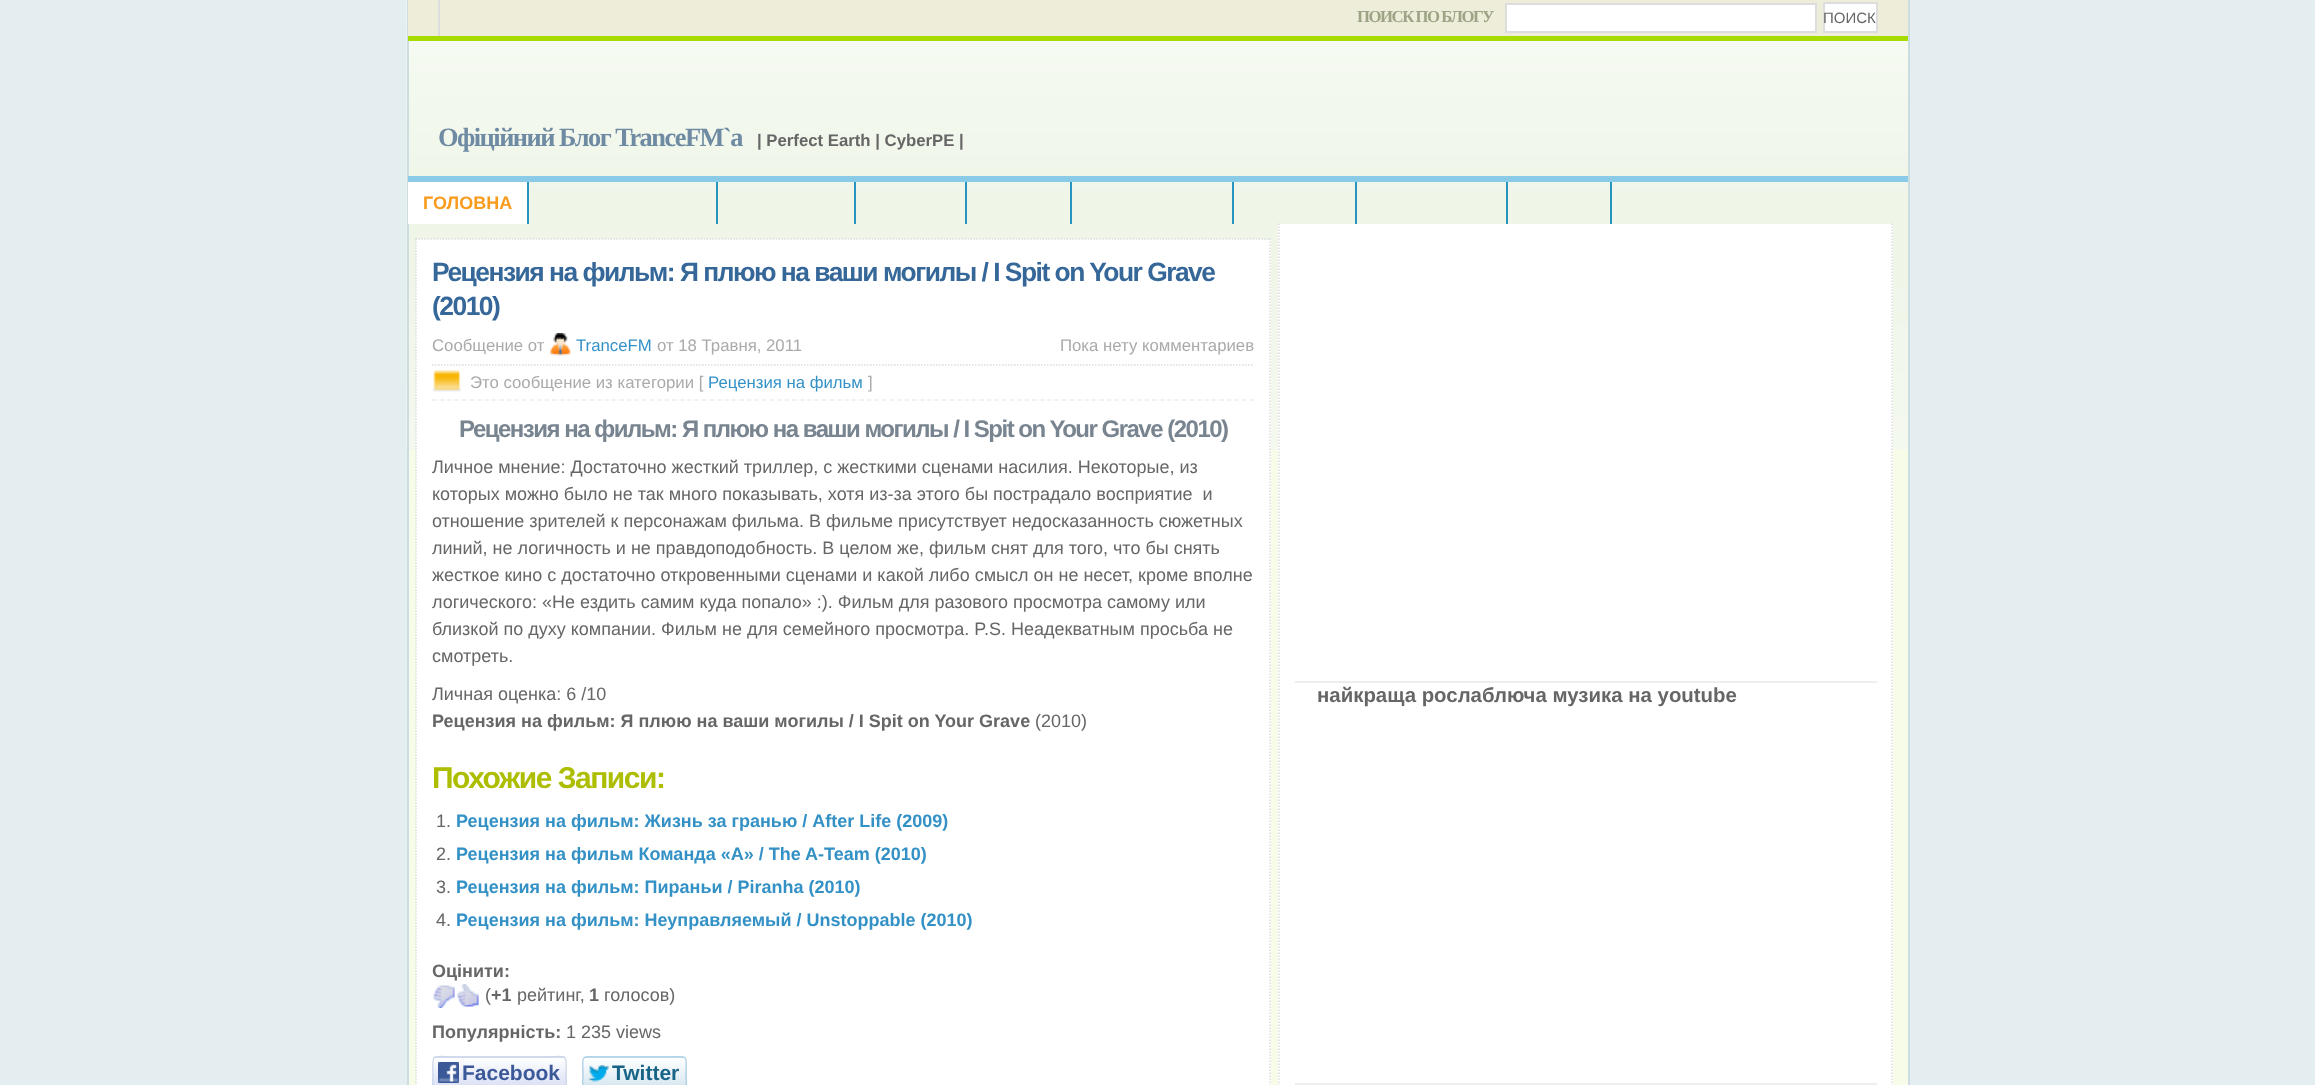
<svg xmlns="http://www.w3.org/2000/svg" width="2315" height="1085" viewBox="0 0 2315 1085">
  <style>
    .t1 { font: bold 16.75px Liberation Serif; letter-spacing: -1.5px; fill: #9ca485; }
    .t2 { font: 15px Liberation Sans; fill: #666; }
    .t3 { font: bold 26.4px Liberation Serif; letter-spacing: -1.5px; fill: #6f8ba3; }
    .t4 { font: bold 16.75px Liberation Sans; fill: #666; }
    .t5 { font: bold 18px Liberation Sans; fill: #f99b1c; }
    .t6 { font: bold 26.4px Liberation Sans; letter-spacing: -1.5px; fill: #366799; }
    .t7 { font: 16.75px Liberation Sans; fill: #aaa; }
    .t8 { font: 16.75px Liberation Sans; fill: #3491c6; }
    .t9 { font: bold 24px Liberation Sans; letter-spacing: -1.5px; fill: #78848f; }
    .t10 { font: 18px Liberation Sans; fill: #666; }
    .t11 { font: bold 18px Liberation Sans; fill: #666; }
    .t12 { font: bold 30px Liberation Sans; letter-spacing: -1.5px; fill: #adbd00; }
    .t13 { font: bold 18px Liberation Sans; fill: #3491c6; }
    .t14 { font: bold 21px Liberation Sans; fill: #3b5998; }
    .t15 { font: bold 21px Liberation Sans; fill: #186487; }
    .t16 { font: bold 20.4px Liberation Sans; fill: #666; }
  </style>
  <defs>
    <clipPath id="clip1"><rect x="432" y="1056" width="135" height="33" rx="5"/></clipPath>
    <linearGradient id="g1" gradientUnits="userSpaceOnUse" x1="500" y1="1028" x2="500" y2="1058"><stop offset="0" stop-color="#fff"/><stop offset="1" stop-color="#d8def4"/></linearGradient>
    <linearGradient id="g2" gradientUnits="userSpaceOnUse" x1="500" y1="1058" x2="500" y2="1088"><stop offset="0" stop-color="#fff"/><stop offset="1" stop-color="#d8def4"/></linearGradient>
    <clipPath id="clip2"><rect x="582" y="1056" width="105" height="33" rx="5"/></clipPath>
    <linearGradient id="g3" gradientUnits="userSpaceOnUse" x1="635" y1="1028" x2="635" y2="1058"><stop offset="0" stop-color="#fff"/><stop offset="1" stop-color="#d5e6ef"/></linearGradient>
    <linearGradient id="g4" gradientUnits="userSpaceOnUse" x1="635" y1="1058" x2="635" y2="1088"><stop offset="0" stop-color="#fff"/><stop offset="1" stop-color="#d5e6ef"/></linearGradient>
  </defs>
  <rect width="100%" height="100%" fill="#e4edf0"/>
  <rect x="409" y="450" width="1499" height="635" fill="#f6fce7"/>
  <image x="406" y="0" width="1502" height="450" href="images/1.png"/>
  <rect x="1908" y="0" width="2" height="1085" fill="#cbdde1"/>
  <rect x="407" y="0" width="2" height="1085" fill="#cbdde1"/>
  <rect x="408" y="0" width="1500" height="36" fill="#eeedd9"/>
  <rect x="408" y="36" width="1500" height="5" fill="#a6dc00"/>
  <rect x="438" y="0" width="2" height="36" fill="#ddd"/>
  <text x="1357" y="22" class="t1">ПОИСК ПО БЛОГУ</text>
  <rect x="1506" y="4" width="310" height="28" fill="#fff" stroke="#ddd" stroke-width="2"/>
  <rect x="1824" y="3" width="53" height="29" fill="#fff" stroke="#ddd" stroke-width="2"/>
  <text x="1823" y="23" class="t2">ПОИСК</text>
  <text x="438" y="146" class="t3">Офіційний Блог TranceFM`a</text>
  <text x="757" y="146" class="t4">| Perfect Earth | CyberPE |</text>
  <rect x="408" y="176" width="1500" height="6" fill="#8acce7"/>
  <rect x="527" y="182" width="2" height="42" fill="#2594bf"/>
  <rect x="408" y="182" width="119" height="42" fill="#fff"/>
  <text x="423" y="209" class="t5">ГОЛОВНА</text>
  <rect x="716" y="182" width="2" height="42" fill="#2594bf"/>
  <rect x="854" y="182" width="2" height="42" fill="#2594bf"/>
  <rect x="965" y="182" width="2" height="42" fill="#2594bf"/>
  <rect x="1070" y="182" width="2" height="42" fill="#2594bf"/>
  <rect x="1232" y="182" width="2" height="42" fill="#2594bf"/>
  <rect x="1355" y="182" width="2" height="42" fill="#2594bf"/>
  <rect x="1506" y="182" width="2" height="42" fill="#2594bf"/>
  <rect x="1610" y="182" width="2" height="42" fill="#2594bf"/>
  <rect x="416" y="239" width="855" height="846" fill="#fff"/>
  <path d="M415.5 239H1270.5" fill="none" stroke="#ddd" stroke-width="1.5" stroke-dasharray="1.5 1.5"/>
  <path d="M1270 238.5V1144.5" fill="none" stroke="#ddd" stroke-width="1.5" stroke-dasharray="1.5 1.5"/>
  <path d="M416 238.5V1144.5" fill="none" stroke="#ddd" stroke-width="1.5" stroke-dasharray="1.5 1.5"/>
  <text x="432" y="281" class="t6">Рецензия на фильм: Я плюю на ваши могилы / I Spit on Your Grave</text>
  <text x="432" y="315" class="t6">(2010)</text>
  <path d="M432 365H1254" fill="none" stroke="#ddd" stroke-width="1.5" stroke-dasharray="1.5 1.5"/>
  <text x="432" y="351" class="t7">Сообщение от</text>
  <image x="549" y="333" width="22" height="23" href="images/2.png"/>
  <text x="576" y="351" class="t8">TranceFM</text>
  <text x="657" y="351" class="t7">от 18 Травня, 2011</text>
  <text x="1060" y="351" class="t7">Пока нету комментариев</text>
  <image x="432" y="370" width="29" height="22" href="images/3.png"/>
  <path d="M432 400H1254" fill="none" stroke="#eee" stroke-width="1.5" stroke-dasharray="4.5 3"/>
  <text x="470" y="388" class="t7">Это сообщение из категории [</text>
  <text x="708" y="388" class="t8">Рецензия на фильм</text>
  <text x="868" y="388" class="t7">]</text>
  <text x="459" y="437" class="t9">Рецензия на фильм: Я плюю на ваши могилы / I Spit on Your Grave (2010)</text>
  <text x="432" y="473" class="t10">Личное мнение: Достаточно жесткий триллер, с жесткими сценами насилия. Некоторые, из</text>
  <text x="432" y="500" class="t10" xml:space="preserve">которых можно было не так много показывать, хотя из-за этого бы пострадало восприятие  и</text>
  <text x="432" y="527" class="t10">отношение зрителей к персонажам фильма. В фильме присутствует недосказанность сюжетных</text>
  <text x="432" y="554" class="t10">линий, не логичность и не правдоподобность. В целом же, фильм снят для того, что бы снять</text>
  <text x="432" y="581" class="t10">жесткое кино с достаточно откровенными сценами и какой либо смысл он не несет, кроме вполне</text>
  <text x="432" y="608" class="t10">логического: «Не ездить самим куда попало» :). Фильм для разового просмотра самому или</text>
  <text x="432" y="635" class="t10">близкой по духу компании. Фильм не для семейного просмотра. P.S. Неадекватным просьба не</text>
  <text x="432" y="662" class="t10">смотреть.</text>
  <text x="432" y="700" class="t10">Личная оценка: 6 /10</text>
  <text x="432" y="727" class="t11">Рецензия на фильм: Я плюю на ваши могилы / I Spit on Your Grave</text>
  <text x="1035" y="727" class="t10">(2010)</text>
  <text x="432" y="788" class="t12">Похожие Записи:</text>
  <text x="436" y="827" class="t10">1.</text>
  <text x="456" y="827" class="t13">Рецензия на фильм: Жизнь за гранью / After Life (2009)</text>
  <text x="436" y="860" class="t10">2.</text>
  <text x="456" y="860" class="t13">Рецензия на фильм Команда «А» / The A-Team (2010)</text>
  <text x="436" y="893" class="t10">3.</text>
  <text x="456" y="893" class="t13">Рецензия на фильм: Пираньи / Piranha (2010)</text>
  <text x="436" y="926" class="t10">4.</text>
  <text x="456" y="926" class="t13">Рецензия на фильм: Неуправляемый / Unstoppable (2010)</text>
  <text x="432" y="977" class="t11">Оцінити:</text>
  <image x="433" y="984" width="22" height="24" href="images/4.png"/>
  <image x="457" y="984" width="22" height="24" href="images/5.png"/>
  <text x="485" y="1001" class="t10">(</text>
  <text x="491" y="1001" class="t11">+1</text>
  <text x="517" y="1001" class="t10">рейтинг,</text>
  <text x="589" y="1001" class="t11">1</text>
  <text x="604" y="1001" class="t10">голосов)</text>
  <text x="432" y="1038" class="t11">Популярність:</text>
  <text x="566" y="1038" class="t10">1 235 views</text>
  <g clip-path="url(#clip1)">
    <rect x="432" y="1056" width="135" height="2" fill="url(#g1)"/>
    <rect x="432" y="1058" width="135" height="27" fill="url(#g2)"/>
  </g>
  <path d="M434 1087C431.5 1084.5 433 1079.5 433 1076.5C433 1051.5 429 1057 457.5 1057H541.5C570 1057 566 1051.5 566 1076.5C566 1079.5 567.5 1084.5 565 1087" fill="none" stroke="#cad4e7cc" stroke-width="1.5"/>
  <image x="438" y="1062" width="21" height="21" href="images/6.png"/>
  <text x="462" y="1080" class="t14">Facebook</text>
  <g clip-path="url(#clip2)">
    <rect x="582" y="1056" width="105" height="2" fill="url(#g3)"/>
    <rect x="582" y="1058" width="105" height="27" fill="url(#g4)"/>
  </g>
  <path d="M584 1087C581.5 1084.5 583 1079.5 583 1076.5C583 1053.5 578.5 1057 602.5 1057H666.5C690.5 1057 686 1053.5 686 1076.5C686 1079.5 687.5 1084.5 685 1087" fill="none" stroke="#a4cce5cc" stroke-width="1.5"/>
  <image x="588" y="1065" width="21" height="17" href="images/7.png"/>
  <text x="612" y="1080" class="t15">Twitter</text>
  <rect x="1278" y="224" width="615" height="861" fill="#fff"/>
  <path d="M1892 223.5V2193" fill="none" stroke="#ddd" stroke-width="1.5" stroke-dasharray="1.5 1.5"/>
  <path d="M1279 223.5V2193" fill="none" stroke="#ddd" stroke-width="1.5" stroke-dasharray="1.5 1.5"/>
  <rect x="1295" y="681" width="582" height="2" fill="#eee"/>
  <text x="1317" y="702" class="t16">найкраща рослаблюча музика на youtube</text>
  <rect x="1295" y="1083" width="582" height="2" fill="#eee"/>
</svg>
